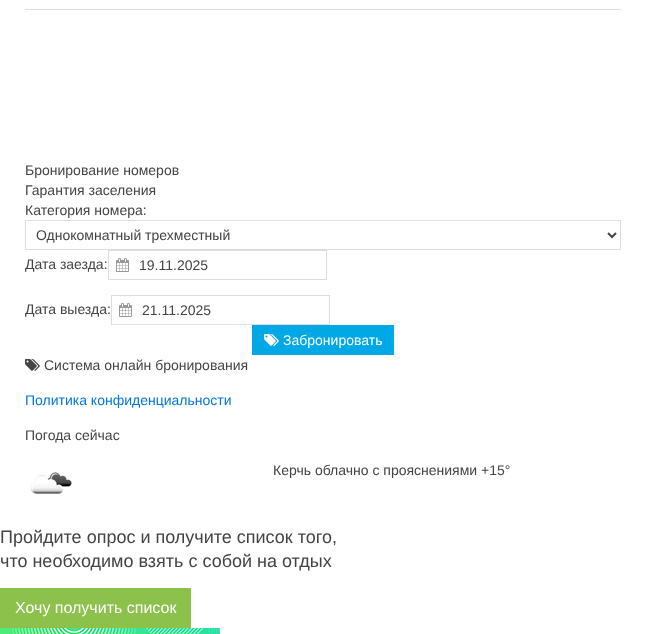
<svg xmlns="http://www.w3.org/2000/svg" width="646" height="634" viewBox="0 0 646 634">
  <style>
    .t1 { font: 14px Liberation Sans; fill: #444; }
    .t2 { font: 14px Liberation Sans; fill: #fff; }
    .t3 { font: 14px Liberation Sans; fill: #07d; }
    .t4 { font: 18px Liberation Sans; fill: #444; }
    .t5 { font: 16px Liberation Sans; fill: #fff; }
  </style>
  <rect width="100%" height="100%" fill="#fff"/>
  <rect x="25" y="9" width="596" height="1" fill="#ddd"/>
  <text x="25" y="175" class="t1">Бронирование номеров</text>
  <text x="25" y="195" class="t1">Гарантия заселения</text>
  <text x="25" y="215" class="t1">Категория номера:</text>
  <rect x="25.5" y="220.5" width="595" height="29" fill="none" stroke="#ddd"/>
  <path d="M608 233L612 237L616 233" fill="none" stroke="#444" stroke-width="2"/>
  <text x="36" y="240" class="t1">Однокомнатный трехместный</text>
  <text x="25" y="269" class="t1">Дата заезда:</text>
  <rect x="108.5" y="250.5" width="218" height="29" fill="none" stroke="#ddd"/>
  <image x="116" y="258" width="13" height="14" href="images/1.png"/>
  <text x="139" y="270" class="t1">19.11.2025</text>
  <text x="25" y="314" class="t1">Дата выезда:</text>
  <rect x="111.5" y="295.5" width="218" height="29" fill="none" stroke="#ddd"/>
  <image x="119" y="303" width="13" height="14" href="images/1.png"/>
  <text x="142" y="315" class="t1">21.11.2025</text>
  <rect x="252" y="325" width="142" height="30" fill="#00a8e6"/>
  <image x="264" y="334" width="15" height="12" href="images/2.png"/>
  <text x="283" y="345" class="t2">Забронировать</text>
  <image x="25" y="359" width="15" height="12" href="images/3.png"/>
  <text x="44" y="370" class="t1">Система онлайн бронирования</text>
  <text x="25" y="405" class="t3">Политика конфиденциальности</text>
  <text x="25" y="440" class="t1">Погода сейчас</text>
  <image x="30" y="472" width="42" height="22" href="images/4.png"/>
  <text x="273" y="475" class="t1">Керчь облачно с прояснениями +15°</text>
  <text x="0" y="543" class="t4">Пройдите опрос и получите список того,</text>
  <text x="0" y="567" class="t4">что необходимо взять с собой на отдых</text>
  <rect x="0" y="588" width="191" height="40" fill="#8cc14c"/>
  <text x="15" y="613" class="t5">Хочу получить список</text>
  <image x="0" y="628" width="220" height="6" href="images/5.png"/>
</svg>
